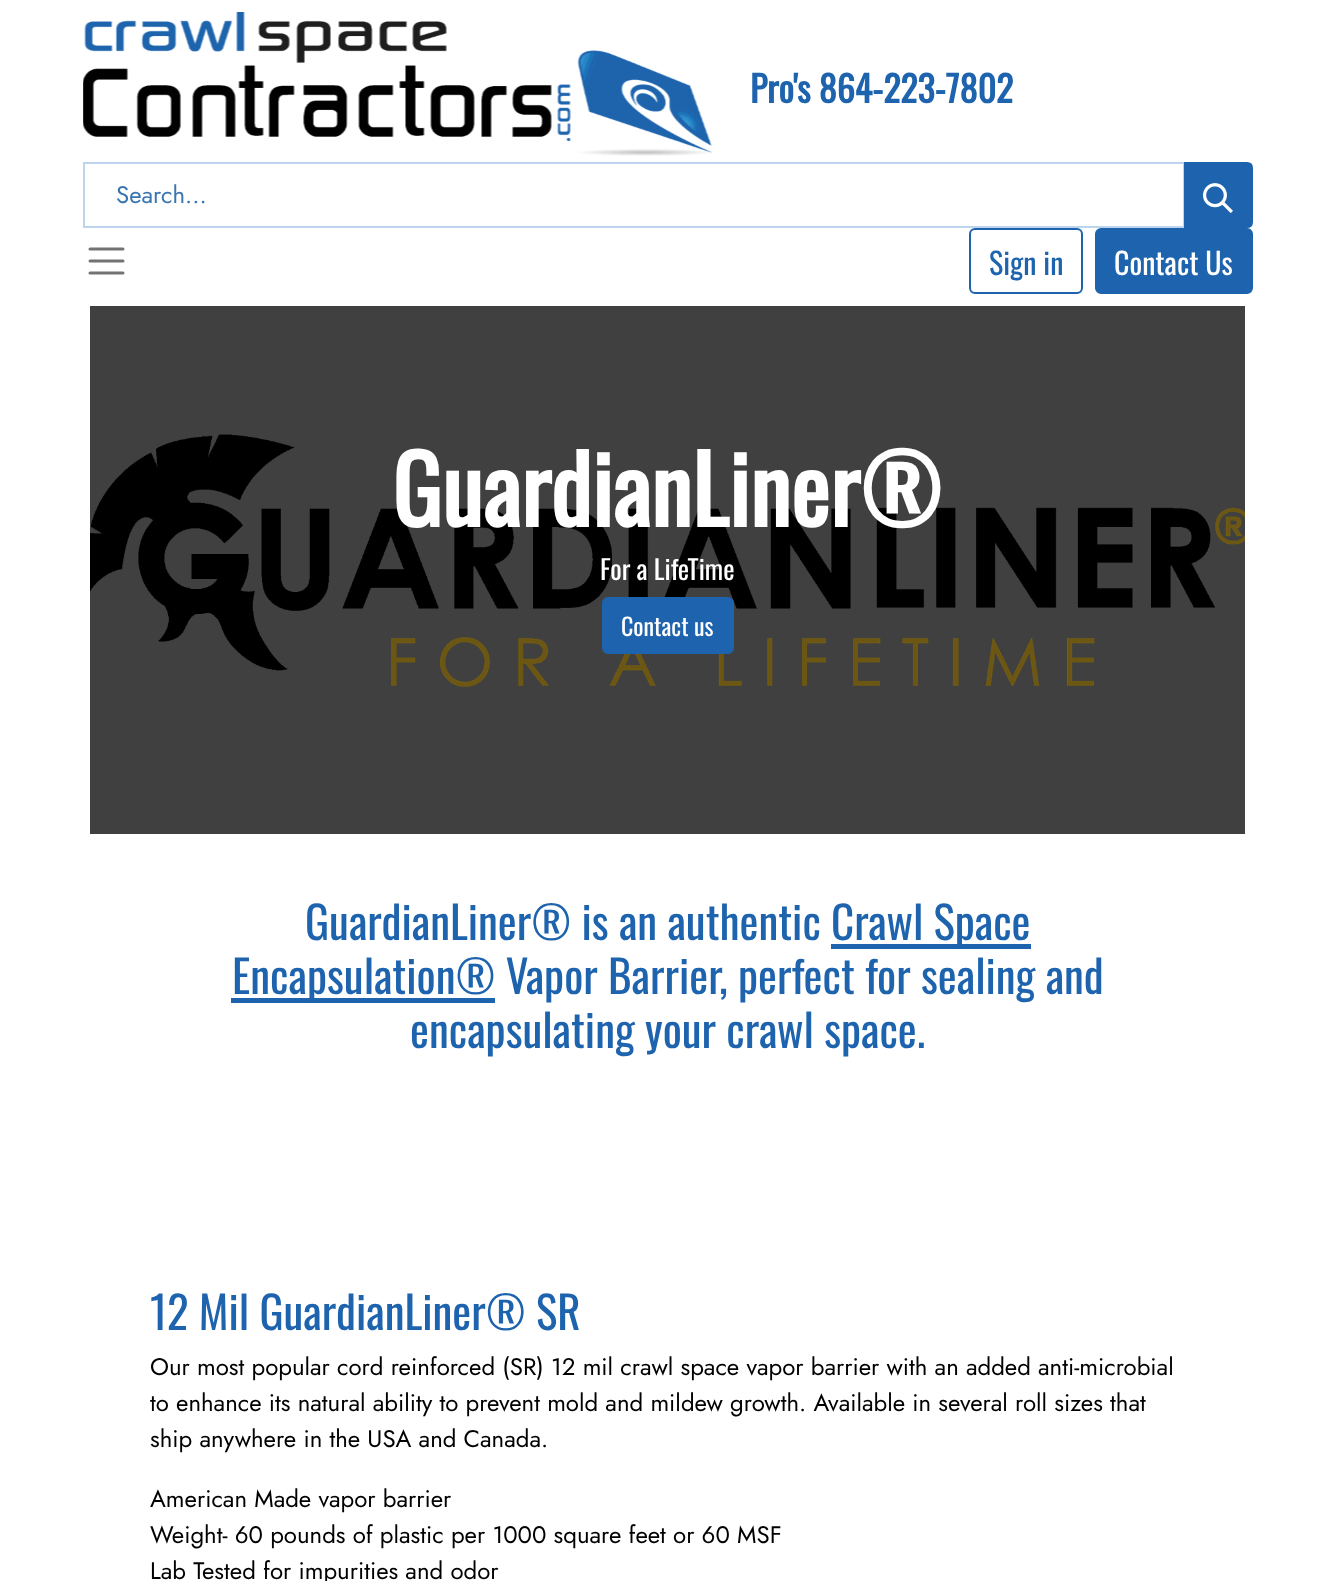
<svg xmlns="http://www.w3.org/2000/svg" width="1334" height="1581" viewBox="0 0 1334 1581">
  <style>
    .t1 { font: bold 36px Oswald; fill: #1e63ad; }
    .t2 { font: 24px Jost; fill: #3a75af; }
    .t3 { font: 30px Oswald; fill: #1e63ad; }
    .t4 { font: 30px Oswald; fill: #fff; }
    .t5 { font: bold 93px Oswald; fill: #fff; }
    .t6 { font: 27px Oswald; fill: #fff; }
    .t7 { font: 24px Oswald; fill: #fff; }
    .t8 { font: 45px Oswald; fill: #1e63ad; }
    .t9 { font: 24px Jost; fill: #000; }
  </style>
  <rect width="100%" height="100%" fill="#fff"/>
  <image x="83" y="12" width="629" height="144" href="images/1.png"/>
  <text x="750" y="103" class="t1">Pro's 864-223-7802</text>
  <rect x="84" y="163" width="1100" height="64" fill="none" stroke="#bcd4ec" stroke-width="2"/>
  <text x="116" y="203" class="t2">Search...</text>
  <path d="M1185 163H1247C1250 163 1252 165 1252 168V222C1252 225 1250 227 1247 227H1185Z" fill="#1e63ad" stroke="#1e63ad" stroke-width="2"/>
  <image x="1203" y="183" width="30" height="30" href="images/2.png"/>
  <path d="M90 249H123M90 261H123M90 273H123" fill="none" stroke="#737373" stroke-width="3" stroke-linecap="round"/>
  <rect x="970" y="229" width="112" height="64" rx="5" fill="none" stroke="#1e63ad" stroke-width="2"/>
  <text x="989" y="275" class="t3">Sign in</text>
  <rect x="1096" y="229" width="156" height="64" rx="5" fill="#1e63ad" stroke="#1e63ad" stroke-width="2"/>
  <text x="1114" y="275" class="t4">Contact Us</text>
  <rect x="90" y="306" width="1155" height="528" fill="#404040"/>
  <image x="90" y="434" width="1155" height="253" href="images/3.png"/>
  <text x="392" y="527" class="t5">GuardianLiner®</text>
  <text x="600" y="580" class="t6">For a LifeTime</text>
  <rect x="603" y="598" width="130" height="55" rx="5" fill="#1e63ad" stroke="#1e63ad" stroke-width="2"/>
  <text x="621" y="636" class="t7">Contact us</text>
  <text x="305" y="940" class="t8">GuardianLiner® is an authentic</text>
  <rect x="831" y="944" width="200" height="5" fill="#1e63ad"/>
  <text x="831" y="940" class="t8">Crawl Space</text>
  <rect x="231" y="998" width="264" height="5" fill="#1e63ad"/>
  <text x="232" y="994" class="t8">Encapsulation® Vapor Barrier, perfect for sealing and</text>
  <text x="410" y="1048" class="t8">encapsulating your crawl space.</text>
  <text x="150" y="1330" class="t8">12 Mil GuardianLiner® SR</text>
  <text x="150" y="1375" class="t9">Our most popular cord reinforced (SR) 12 mil crawl space vapor barrier with an added anti-microbial</text>
  <text x="150" y="1411" class="t9">to enhance its natural ability to prevent mold and mildew growth. Available in several roll sizes that</text>
  <text x="150" y="1447" class="t9">ship anywhere in the USA and Canada.</text>
  <text x="150" y="1507" class="t9">American Made vapor barrier</text>
  <text x="150" y="1543" class="t9">Weight- 60 pounds of plastic per 1000 square feet or 60 MSF</text>
  <text x="150" y="1579" class="t9">Lab Tested for impurities and odor</text>
</svg>
